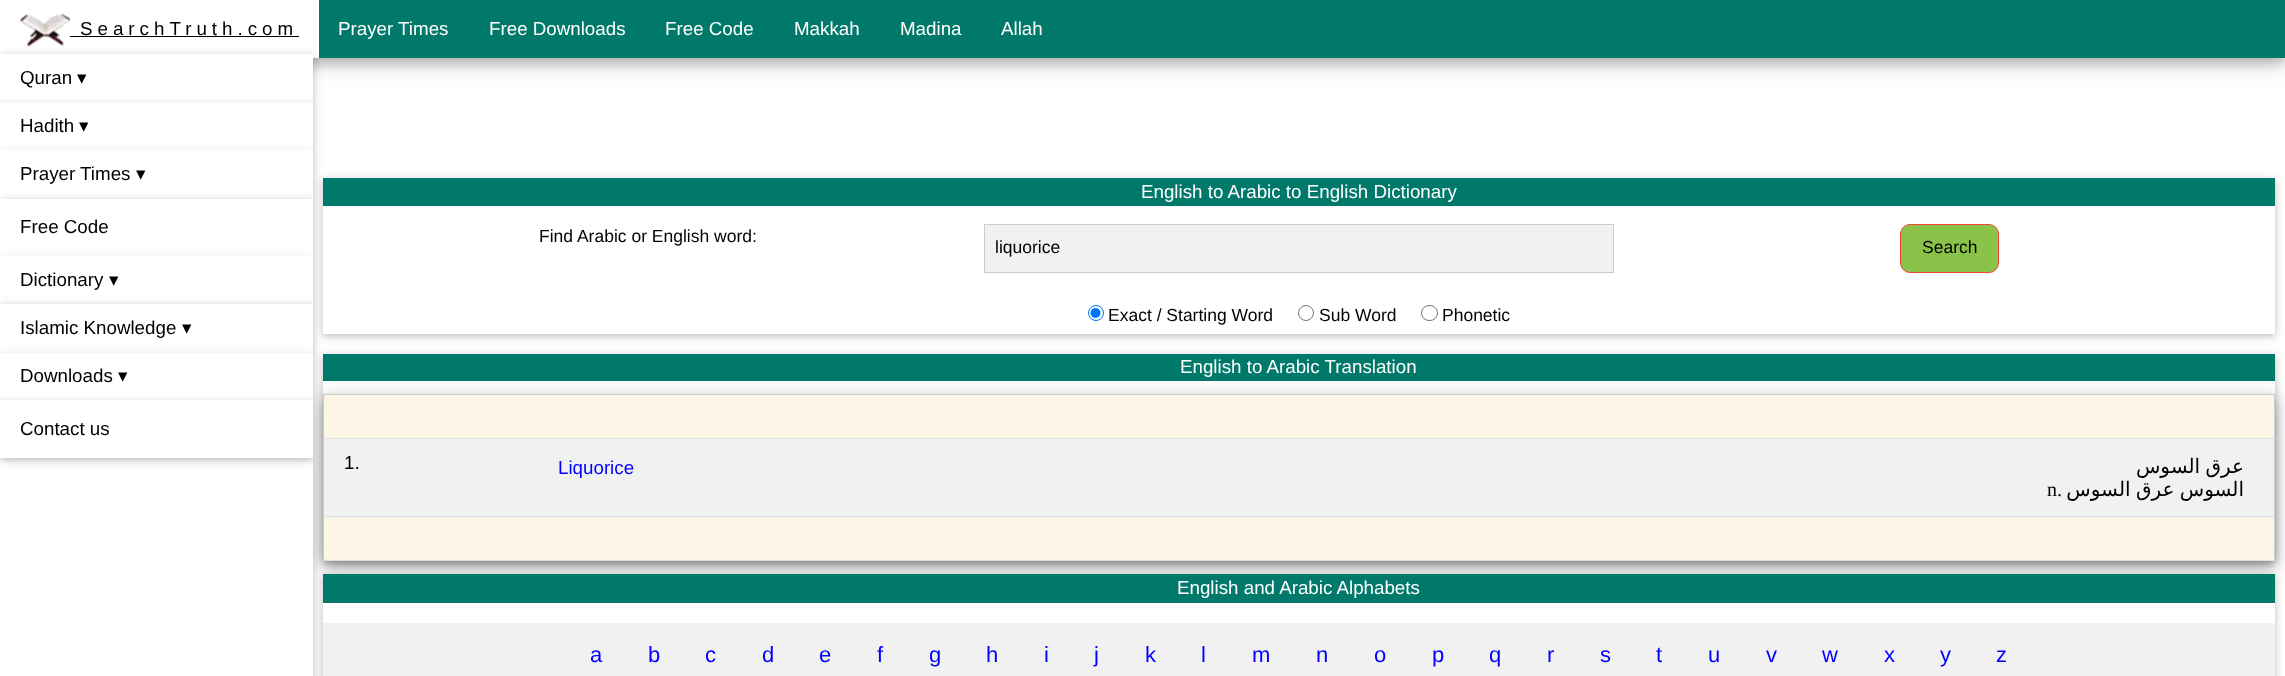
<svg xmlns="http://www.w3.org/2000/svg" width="2285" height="676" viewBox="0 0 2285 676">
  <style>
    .t1 { font: 18.75px Liberation Sans; letter-spacing: 5px; fill: #000; }
    .t2 { font: 18.75px Liberation Sans; fill: #fff; }
    .t3 { font: 18.75px Liberation Sans; fill: #000; }
    .t4 { font: 18.75px DejaVu Sans; fill: #000; }
    .t5 { font: 17.5px Liberation Sans; fill: #000; }
    .t6 { font: 18.75px Liberation Sans; fill: #00f; }
    .t7 { font: 20px DejaVu Sans; direction: rtl; fill: #000; }
    .t8 { font: 20px Liberation Serif; fill: #000; }
    .t9 { font: 22px Liberation Sans; fill: #00f; }
  </style>
  <defs>
    <clipPath id="clip1"><path d="M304 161H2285V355H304ZM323 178H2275V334H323Z" clip-rule="evenodd"/></clipPath>
    <clipPath id="clip2"><path d="M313 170H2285V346H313ZM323 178H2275V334H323Z" clip-rule="evenodd"/></clipPath>
    <clipPath id="clip3"><path d="M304 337H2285V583H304ZM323 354H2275V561H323Z" clip-rule="evenodd"/></clipPath>
    <clipPath id="clip4"><path d="M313 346H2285V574H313ZM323 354H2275V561H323Z" clip-rule="evenodd"/></clipPath>
    <clipPath id="clip5"><path d="M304 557H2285V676H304ZM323 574H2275V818H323Z" clip-rule="evenodd"/></clipPath>
    <clipPath id="clip6"><path d="M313 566H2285V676H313ZM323 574H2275V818H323Z" clip-rule="evenodd"/></clipPath>
    <clipPath id="clip7"><rect x="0" y="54" width="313" height="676"/></clipPath>
  </defs>
  <rect width="100%" height="100%" fill="#fff"/>
  <rect x="0" y="5" width="2285" height="58" fill="#00000030" filter="blur(12.5px)"/>
  <rect x="0" y="5" width="2285" height="58" fill="#00000033" filter="blur(6px)"/>
  <rect x="319" y="0" width="1966" height="58" fill="#00796b"/>
  <rect x="0" y="0" width="319" height="58" fill="#fff"/>
  <image x="20" y="13" width="50" height="34" href="images/1.png"/>
  <text x="80" y="35" class="t1">SearchTruth.com</text>
  <rect x="70" y="36" width="229" height="1" fill="#000"/>
  <text x="338" y="35" class="t2">Prayer Times</text>
  <text x="489" y="35" class="t2">Free Downloads</text>
  <text x="665" y="35" class="t2">Free Code</text>
  <text x="794" y="35" class="t2">Makkah</text>
  <text x="900" y="35" class="t2">Madina</text>
  <text x="1001" y="35" class="t2">Allah</text>
  <g clip-path="url(#clip1)">
    <rect x="323" y="180" width="1952" height="156" fill="#0000001f" filter="blur(6px)"/>
  </g>
  <g clip-path="url(#clip2)">
    <rect x="323" y="180" width="1952" height="156" fill="#00000029" filter="blur(3px)"/>
  </g>
  <rect x="323" y="178" width="1952" height="28" fill="#00796b"/>
  <g clip-path="url(#clip3)">
    <rect x="323" y="356" width="1952" height="208" fill="#0000001f" filter="blur(6px)"/>
  </g>
  <g clip-path="url(#clip4)">
    <rect x="323" y="356" width="1952" height="208" fill="#00000029" filter="blur(3px)"/>
  </g>
  <rect x="323" y="354" width="1952" height="27" fill="#00796b"/>
  <rect x="323" y="399" width="1952" height="167" fill="#00000030" filter="blur(12.5px)"/>
  <rect x="323" y="399" width="1952" height="167" fill="#00000033" filter="blur(6px)"/>
  <rect x="323" y="394" width="1952" height="1" fill="#ccc"/>
  <rect x="323" y="394" width="1" height="167" fill="#ccc"/>
  <rect x="2274" y="394" width="1" height="167" fill="#ccc"/>
  <rect x="323" y="438" width="1952" height="1" fill="#ddd"/>
  <rect x="324" y="395" width="1950" height="43" fill="#fdf5e6"/>
  <rect x="324" y="439" width="1950" height="79" fill="#f1f1f1"/>
  <rect x="323" y="516" width="1952" height="1" fill="#ddd"/>
  <rect x="323" y="560" width="1952" height="1" fill="#ddd"/>
  <rect x="324" y="518" width="1950" height="42" fill="#fdf5e6"/>
  <g clip-path="url(#clip5)">
    <rect x="323" y="576" width="1952" height="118" fill="#0000001f" filter="blur(6px)"/>
  </g>
  <g clip-path="url(#clip6)">
    <rect x="323" y="576" width="1952" height="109" fill="#00000029" filter="blur(3px)"/>
  </g>
  <rect x="323" y="574" width="1952" height="29" fill="#00796b"/>
  <rect x="323" y="623" width="1952" height="53" fill="#f1f1f1"/>
  <rect x="0" y="56" width="313" height="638" fill="#0000001f" filter="blur(6px)"/>
  <rect x="0" y="56" width="313" height="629" fill="#00000029" filter="blur(3px)"/>
  <rect x="0" y="458" width="313" height="218" fill="#fff"/>
  <rect x="0" y="54" width="313" height="49" fill="#fff"/>
  <text x="20" y="84" class="t3">Quran</text>
  <text x="77" y="84" class="t4">▾</text>
  <g clip-path="url(#clip7)">
    <rect x="0" y="105" width="313" height="48" fill="#0000001f" filter="blur(6px)"/>
  </g>
  <rect x="0" y="103" width="313" height="47" fill="#fff"/>
  <text x="20" y="132" class="t3">Hadith</text>
  <text x="79" y="132" class="t4">▾</text>
  <g clip-path="url(#clip7)">
    <rect x="0" y="153" width="313" height="48" fill="#0000001f" filter="blur(6px)"/>
  </g>
  <rect x="0" y="150" width="313" height="49" fill="#fff"/>
  <text x="20" y="180" class="t3">Prayer Times</text>
  <text x="136" y="180" class="t4">▾</text>
  <g clip-path="url(#clip7)">
    <rect x="0" y="201" width="313" height="58" fill="#0000001f" filter="blur(6px)"/>
    <rect x="0" y="201" width="313" height="58" fill="#00000029" filter="blur(3px)"/>
  </g>
  <rect x="0" y="199" width="313" height="57" fill="#fff"/>
  <text x="20" y="233" class="t3">Free Code</text>
  <g clip-path="url(#clip7)">
    <rect x="0" y="259" width="313" height="47" fill="#0000001f" filter="blur(6px)"/>
  </g>
  <rect x="0" y="256" width="313" height="48" fill="#fff"/>
  <text x="20" y="286" class="t3">Dictionary</text>
  <text x="109" y="286" class="t4">▾</text>
  <g clip-path="url(#clip7)">
    <rect x="0" y="306" width="313" height="49" fill="#0000001f" filter="blur(6px)"/>
    <rect x="0" y="306" width="313" height="49" fill="#00000029" filter="blur(3px)"/>
  </g>
  <rect x="0" y="304" width="313" height="49" fill="#fff"/>
  <text x="20" y="334" class="t3">Islamic Knowledge</text>
  <text x="182" y="334" class="t4">▾</text>
  <g clip-path="url(#clip7)">
    <rect x="0" y="355" width="313" height="48" fill="#0000001f" filter="blur(6px)"/>
  </g>
  <rect x="0" y="353" width="313" height="47" fill="#fff"/>
  <text x="20" y="382" class="t3">Downloads</text>
  <text x="118" y="382" class="t4">▾</text>
  <g clip-path="url(#clip7)">
    <rect x="0" y="403" width="313" height="57" fill="#0000001f" filter="blur(6px)"/>
    <rect x="0" y="403" width="313" height="57" fill="#00000029" filter="blur(3px)"/>
  </g>
  <rect x="0" y="400" width="313" height="58" fill="#fff"/>
  <text x="20" y="435" class="t3">Contact us</text>
  <text x="1141" y="198" class="t2">English to Arabic to English Dictionary</text>
  <text x="539" y="242" class="t5">Find Arabic or English word:</text>
  <rect x="984.5" y="224.5" width="629" height="48" fill="#f1f1f1" stroke="#ccc"/>
  <text x="995" y="253" class="t5">liquorice</text>
  <rect x="1900.5" y="224.5" width="98" height="48" rx="9.5" fill="#8bc34a" stroke="#f44336"/>
  <text x="1922" y="253" class="t5">Search</text>
  <circle cx="1096" cy="313" r="7.5" fill="none" stroke="#0075ff"/>
  <circle cx="1095.5" cy="313" r="5" fill="#0075ff"/>
  <text x="1108" y="321" class="t5">Exact / Starting Word</text>
  <circle cx="1306" cy="313" r="7.5" fill="none" stroke="#767676"/>
  <text x="1319" y="321" class="t5">Sub Word</text>
  <rect x="1421.5" y="305.5" width="16" height="15" rx="7.5" fill="none" stroke="#767676"/>
  <text x="1442" y="321" class="t5">Phonetic</text>
  <text x="1180" y="373" class="t2">English to Arabic Translation</text>
  <text x="344" y="469" class="t3">1.</text>
  <text x="558" y="474" class="t6">Liquorice</text>
  <text x="2244" y="473" word-spacing="-1" class="t7">عرق السوس</text>
  <text x="2047" y="496" class="t8">n.</text>
  <text x="2244" y="496" word-spacing="-1" class="t7">السوس عرق السوس</text>
  <text x="1177" y="594" class="t2">English and Arabic Alphabets</text>
  <text x="590" y="662" class="t9">a</text>
  <text x="648" y="662" class="t9">b</text>
  <text x="705" y="662" class="t9">c</text>
  <text x="762" y="662" class="t9">d</text>
  <text x="819" y="662" class="t9">e</text>
  <text x="877" y="662" class="t9">f</text>
  <text x="929" y="662" class="t9">g</text>
  <text x="986" y="662" class="t9">h</text>
  <text x="1044" y="662" class="t9">i</text>
  <text x="1094" y="662" class="t9">j</text>
  <text x="1145" y="662" class="t9">k</text>
  <text x="1201" y="662" class="t9">l</text>
  <text x="1252" y="662" class="t9">m</text>
  <text x="1316" y="662" class="t9">n</text>
  <text x="1374" y="662" class="t9">o</text>
  <text x="1432" y="662" class="t9">p</text>
  <text x="1489" y="662" class="t9">q</text>
  <text x="1547" y="662" class="t9">r</text>
  <text x="1600" y="662" class="t9">s</text>
  <text x="1656" y="662" class="t9">t</text>
  <text x="1708" y="662" class="t9">u</text>
  <text x="1766" y="662" class="t9">v</text>
  <text x="1822" y="662" class="t9">w</text>
  <text x="1884" y="662" class="t9">x</text>
  <text x="1940" y="662" class="t9">y</text>
  <text x="1996" y="662" class="t9">z</text>
</svg>
